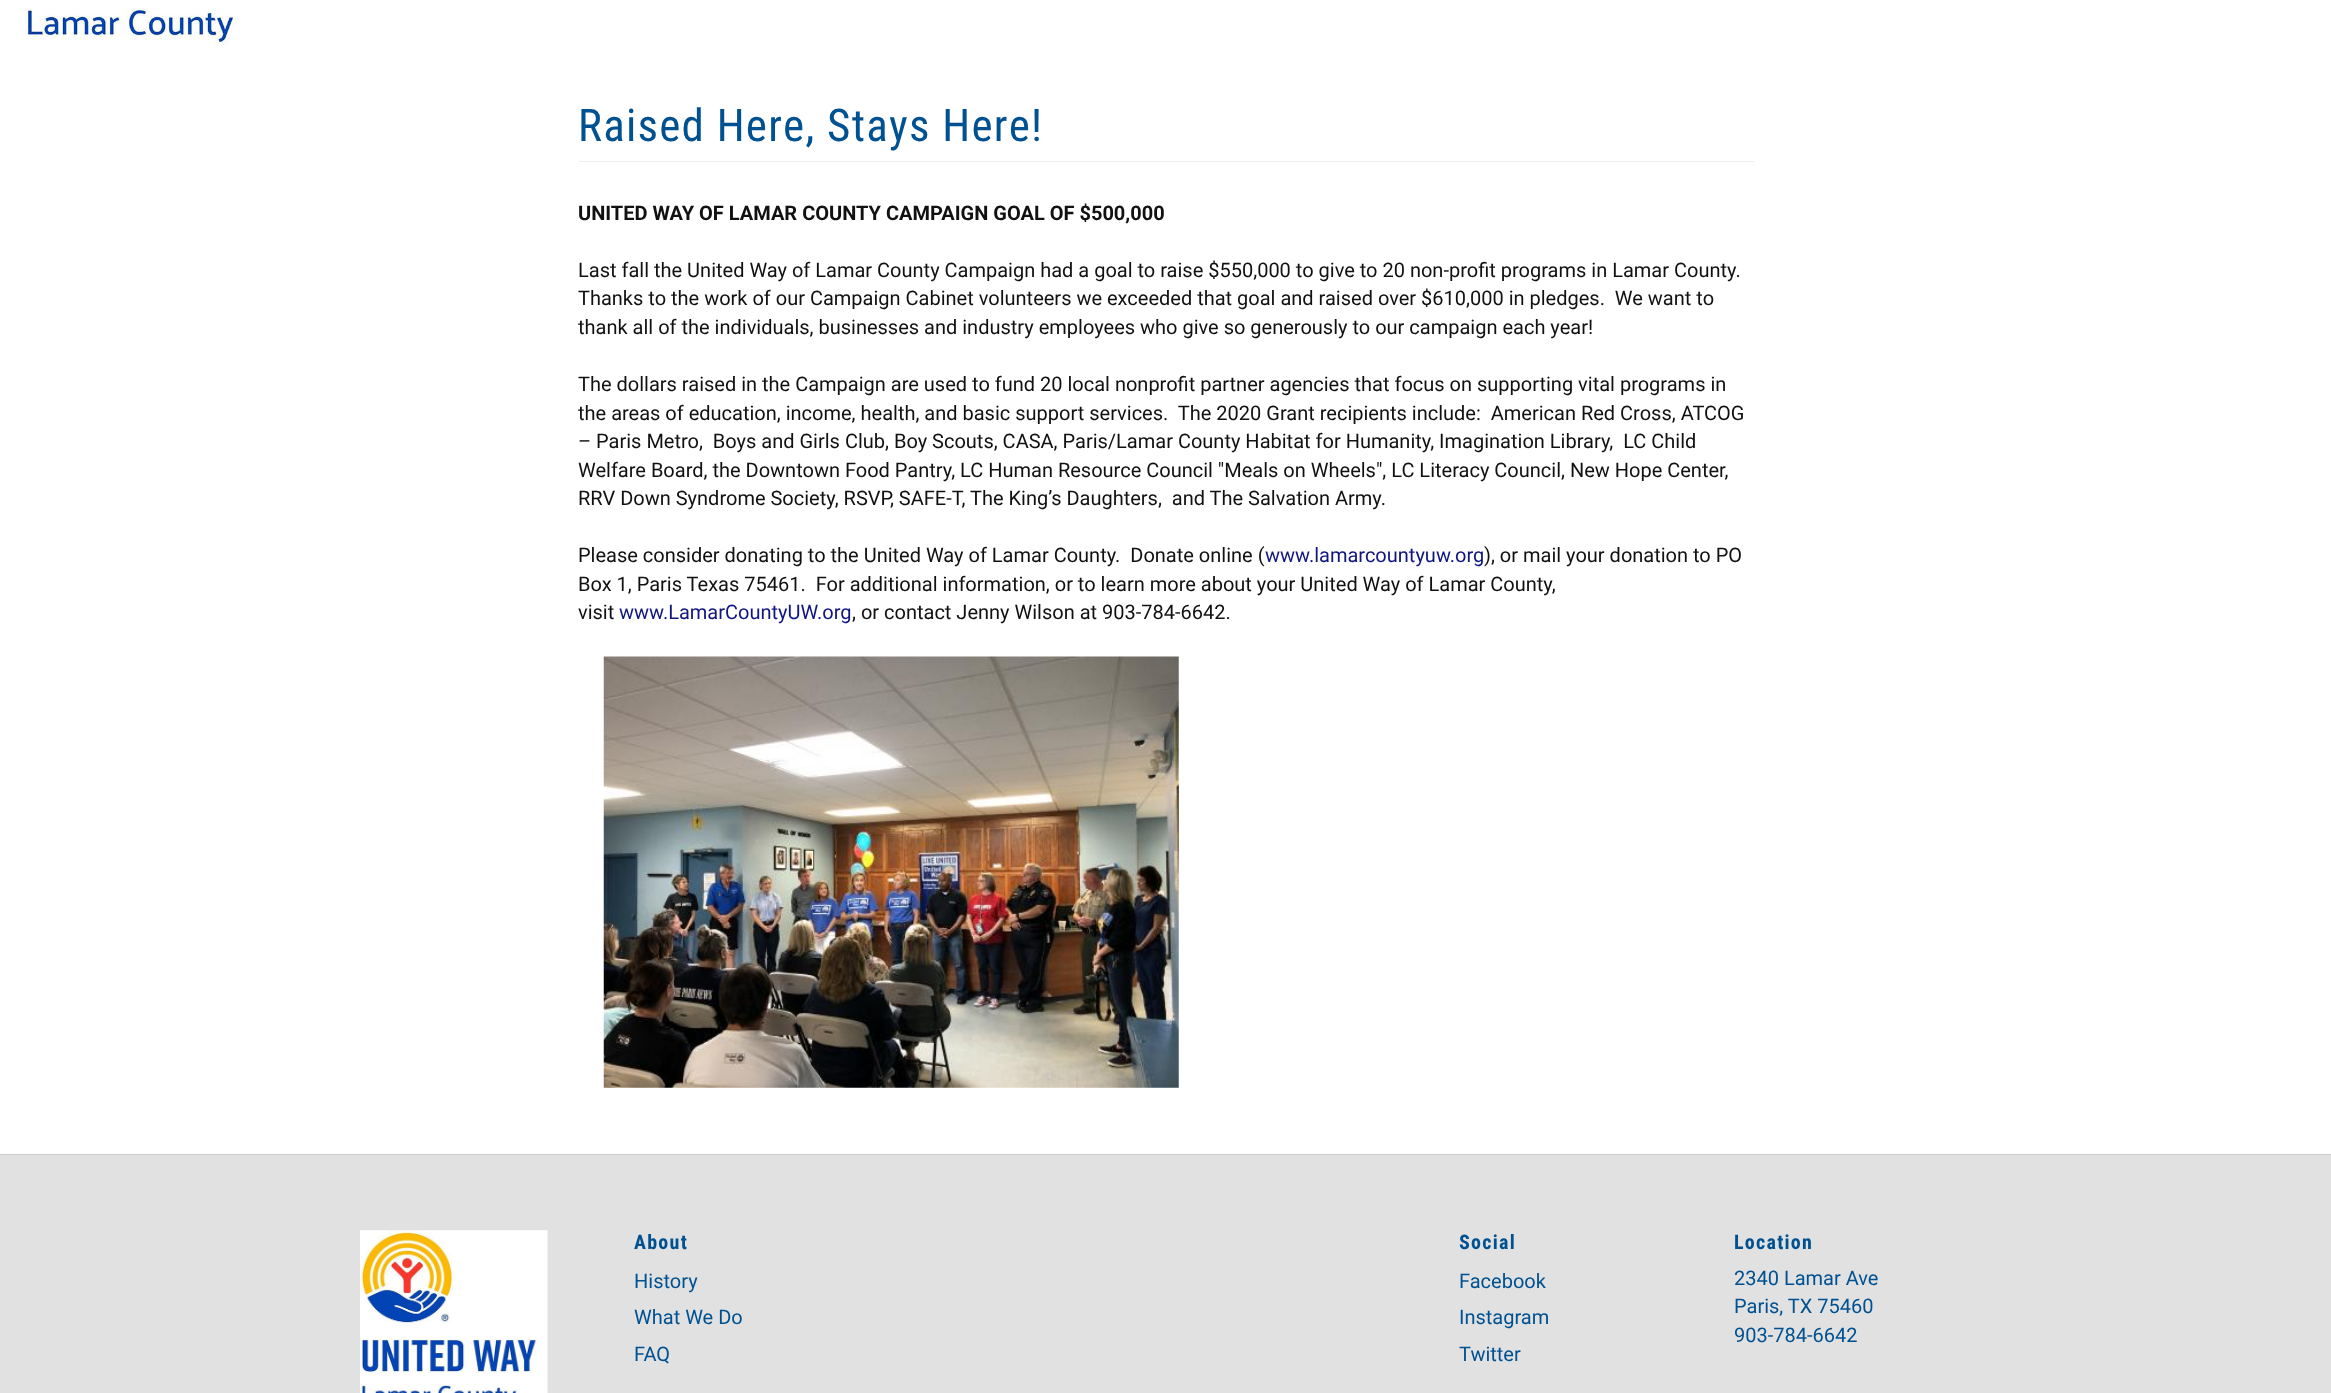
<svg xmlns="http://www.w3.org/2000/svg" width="2331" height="1393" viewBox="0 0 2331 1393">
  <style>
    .t1 { font: 45px Roboto Condensed; letter-spacing: 1.25px; fill: #005191; }
    .t2 { font: bold 20px Roboto; fill: #111; }
    .t3 { font: 20px Roboto; fill: #111; }
    .t4 { font: 20px Roboto; fill: #10167f; }
    .t5 { font: bold 20px Roboto Condensed; letter-spacing: 1.25px; fill: #005191; }
    .t6 { font: 20px Roboto; fill: #005191; }
  </style>
  <rect width="100%" height="100%" fill="#fff"/>
  <image x="25" y="8" width="213" height="39" href="images/1.png"/>
  <rect x="579" y="161" width="1175" height="1" fill="#eee"/>
  <text x="578" y="141" class="t1">Raised Here, Stays Here!</text>
  <text x="578" y="220" class="t2">UNITED WAY OF LAMAR COUNTY CAMPAIGN GOAL OF $500,000</text>
  <text x="578" y="277" class="t3">Last fall the United Way of Lamar County Campaign had a goal to raise $550,000 to give to 20 non-profit programs in Lamar County.</text>
  <text x="578" y="305" class="t3" xml:space="preserve">Thanks to the work of our Campaign Cabinet volunteers we exceeded that goal and raised over $610,000 in pledges.  We want to</text>
  <text x="578" y="334" class="t3">thank all of the individuals, businesses and industry employees who give so generously to our campaign each year!</text>
  <text x="578" y="391" class="t3">The dollars raised in the Campaign are used to fund 20 local nonprofit partner agencies that focus on supporting vital programs in</text>
  <text x="578" y="420" class="t3" xml:space="preserve">the areas of education, income, health, and basic support services.  The 2020 Grant recipients include:  American Red Cross, ATCOG</text>
  <text x="578" y="448" class="t3" xml:space="preserve">– Paris Metro,  Boys and Girls Club, Boy Scouts, CASA, Paris/Lamar County Habitat for Humanity, Imagination Library,  LC Child</text>
  <text x="578" y="477" class="t3">Welfare Board, the Downtown Food Pantry, LC Human Resource Council "Meals on Wheels", LC Literacy Council, New Hope Center,</text>
  <text x="578" y="505" class="t3" xml:space="preserve">RRV Down Syndrome Society, RSVP, SAFE-T, The King’s Daughters,  and The Salvation Army.</text>
  <text x="578" y="562" class="t3" xml:space="preserve">Please consider donating to the United Way of Lamar County.  Donate online (</text>
  <text x="1265" y="562" class="t4">www.lamarcountyuw.org</text>
  <text x="1484" y="562" class="t3">), or mail your donation to PO</text>
  <text x="578" y="591" class="t3" xml:space="preserve">Box 1, Paris Texas 75461.  For additional information, or to learn more about your United Way of Lamar County,</text>
  <text x="578" y="619" class="t3">visit</text>
  <text x="619" y="619" class="t4">www.LamarCountyUW.org</text>
  <text x="852" y="619" class="t3">, or contact Jenny Wilson at 903-784-6642.</text>
  <image x="603" y="656" width="576" height="432" href="images/2.png"/>
  <rect x="0" y="1155" width="2331" height="238" fill="#e1e1e1"/>
  <rect x="0" y="1154" width="2331" height="1" fill="#ccc"/>
  <image x="360" y="1230" width="188" height="163" href="images/3.png"/>
  <text x="634" y="1249" class="t5">About</text>
  <text x="634" y="1288" class="t6">History</text>
  <text x="634" y="1324" class="t6">What We Do</text>
  <text x="634" y="1361" class="t6">FAQ</text>
  <text x="1459" y="1249" class="t5">Social</text>
  <text x="1459" y="1288" class="t6">Facebook</text>
  <text x="1459" y="1324" class="t6">Instagram</text>
  <text x="1459" y="1361" class="t6">Twitter</text>
  <text x="1734" y="1249" class="t5">Location</text>
  <text x="1734" y="1285" class="t6">2340 Lamar Ave</text>
  <text x="1734" y="1313" class="t6">Paris, TX 75460</text>
  <text x="1734" y="1342" class="t6">903-784-6642</text>
</svg>
